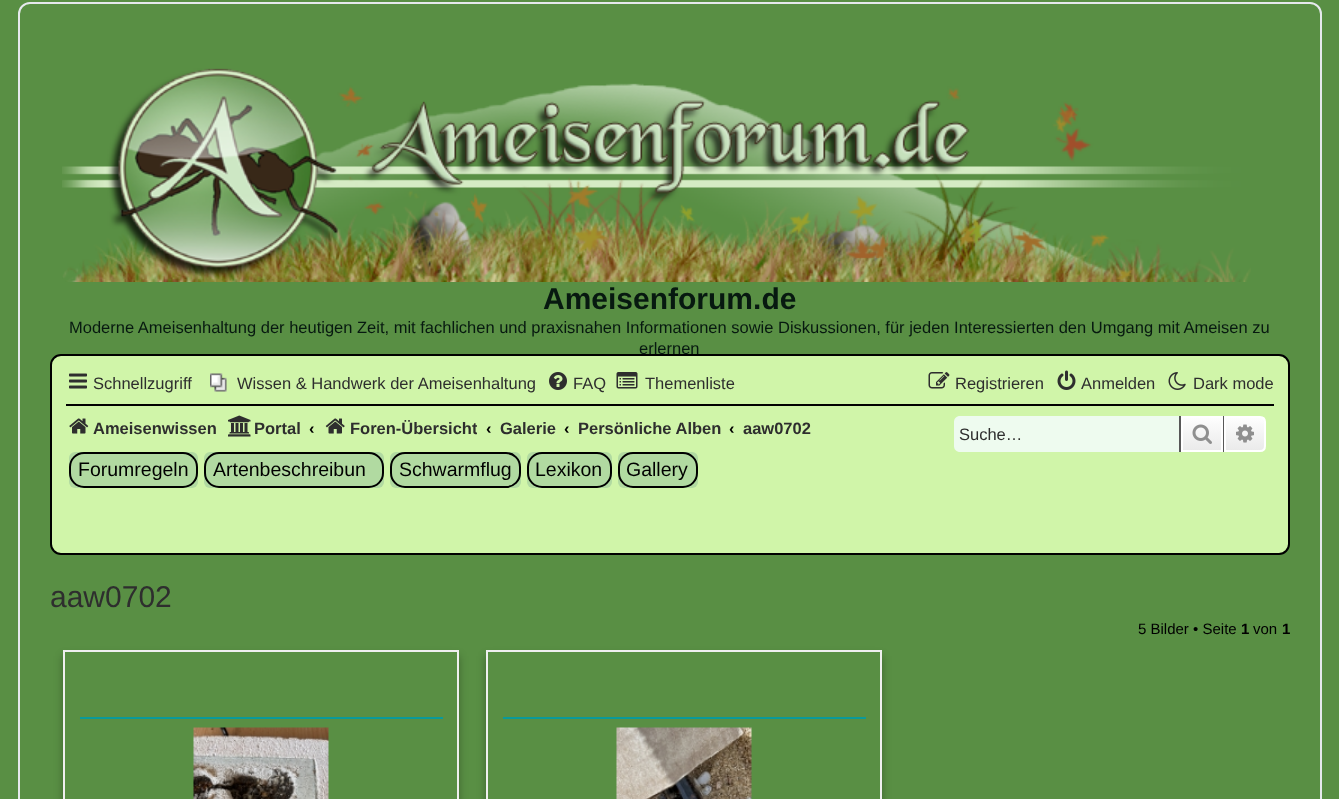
<svg xmlns="http://www.w3.org/2000/svg" width="1339" height="799" viewBox="0 0 1339 799">
  <style>
    .t1 { font: bold 30px Liberation Sans; fill: #071910; }
    .t2 { font: 16.5px Liberation Sans; fill: #071910; }
    .t3 { font: 16.5px Liberation Sans; fill: #2e2e2e; }
    .t4 { font: bold 16.5px Liberation Sans; fill: #2e2e2e; }
    .t5 { font: bold 16.5px Liberation Sans; fill: #000; }
    .t6 { font: 19.5px Liberation Sans; fill: #000; }
    .t7 { font: 30px Liberation Sans; fill: #2e2e2e; }
    .t8 { font: 15px Liberation Sans; fill: #000; }
    .t9 { font: bold 15px Liberation Sans; fill: #000; }
  </style>
  <defs>
    <clipPath id="clip1"><rect x="323" y="410" width="154" height="36"/></clipPath>
    <linearGradient id="g1" gradientUnits="userSpaceOnUse" x1="1202" y1="416" x2="1202" y2="452"><stop offset="0" stop-color="#fff"/><stop offset="1" stop-color="#e9e9e9"/></linearGradient>
    <linearGradient id="g2" gradientUnits="userSpaceOnUse" x1="1245" y1="416" x2="1245" y2="452"><stop offset="0" stop-color="#fff"/><stop offset="1" stop-color="#e9e9e9"/></linearGradient>
    <clipPath id="clip2"><path d="M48 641H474V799H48ZM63 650H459V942H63Z" clip-rule="evenodd"/></clipPath>
    <clipPath id="clip3"><path d="M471 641H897V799H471ZM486 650H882V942H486Z" clip-rule="evenodd"/></clipPath>
  </defs>
  <rect width="100%" height="100%" fill="#598f44"/>
  <rect x="19" y="3" width="1302" height="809" rx="11" fill="none" stroke="#e6e9ed" stroke-width="2"/>
  <image x="62" y="68" width="1189" height="214" href="images/1.png"/>
  <text x="543" y="309" class="t1">Ameisenforum.de</text>
  <text x="69" y="333" class="t2">Moderne Ameisenhaltung der heutigen Zeit, mit fachlichen und praxisnahen Informationen sowie Diskussionen, für jeden Interessierten den Umgang mit Ameisen zu</text>
  <rect x="51" y="355" width="1238" height="199" rx="10" fill="#d0f5a9" stroke="#000" stroke-width="2"/>
  <text x="639" y="354" class="t2">erlernen</text>
  <image x="69" y="373" width="18" height="16" href="images/2.png"/>
  <text x="93" y="389" class="t3">Schnellzugriff</text>
  <image x="210" y="373" width="17" height="19" href="images/3.png"/>
  <text x="237" y="389" class="t3">Wissen &amp; Handwerk der Ameisenhaltung</text>
  <image x="549" y="372" width="18" height="18" href="images/4.png"/>
  <text x="573" y="389" class="t3">FAQ</text>
  <image x="616" y="372" width="22" height="17" href="images/5.png"/>
  <text x="645" y="389" class="t3">Themenliste</text>
  <image x="928" y="372" width="22" height="17" href="images/6.png"/>
  <text x="955" y="389" class="t3">Registrieren</text>
  <image x="1057" y="370" width="19" height="20" href="images/7.png"/>
  <text x="1081" y="389" class="t3">Anmelden</text>
  <image x="1168" y="372" width="18" height="18" href="images/8.png"/>
  <text x="1193" y="389" class="t3">Dark mode</text>
  <rect x="66" y="404" width="1208" height="2" fill="#000"/>
  <image x="69" y="418" width="20" height="16" href="images/9.png"/>
  <text x="93" y="434" class="t4">Ameisenwissen</text>
  <image x="228" y="415" width="23" height="22" href="images/10.png"/>
  <text x="254" y="434" class="t4">Portal</text>
  <text x="309" y="434" class="t5">‹</text>
  <image x="325" y="418" width="20" height="16" href="images/11.png"/>
  <g clip-path="url(#clip1)">
    <text x="350" y="434" class="t4">Foren-Übersicht</text>
  </g>
  <text x="486" y="434" class="t5">‹</text>
  <text x="500" y="434" class="t4">Galerie</text>
  <text x="564" y="434" class="t5">‹</text>
  <text x="578" y="434" class="t4">Persönliche Alben</text>
  <text x="729" y="434" class="t5">‹</text>
  <text x="743" y="434" class="t4">aaw0702</text>
  <path d="M960 416H1179V452H960C956.5 452 954 449.5 954 446V422C954 418.5 956.5 416 960 416Z" fill="#eefbef"/>
  <text x="959" y="440" class="t3">Suche…</text>
  <rect x="1183" y="418" width="38" height="32" fill="url(#g1)"/>
  <rect x="1182" y="417" width="40" height="34" fill="none" stroke="#fff" stroke-width="2"/>
  <rect x="1223" y="416" width="1" height="36" fill="#585858"/>
  <rect x="1179" y="416" width="2" height="36" fill="#585858"/>
  <image x="1192" y="424" width="20" height="20" href="images/12.png"/>
  <path d="M1225 417H1260C1263 417 1265 419 1265 422V446C1265 449 1263 451 1260 451H1225Z" fill="url(#g2)" stroke="#fff" stroke-width="2"/>
  <image x="1236" y="424" width="18" height="19" href="images/13.png"/>
  <rect x="69" y="452" width="129" height="36" rx="6" fill="#b1daa1"/>
  <rect x="70" y="453" width="127" height="34" rx="14" fill="none" stroke="#000" stroke-width="2"/>
  <text x="78" y="476" class="t6">Forumregeln</text>
  <rect x="204" y="452" width="180" height="36" rx="6" fill="#b1daa1"/>
  <rect x="205" y="453" width="178" height="34" rx="14" fill="none" stroke="#000" stroke-width="2"/>
  <text x="213" y="476" class="t6">Artenbeschreibun</text>
  <rect x="390" y="452" width="131" height="36" rx="6" fill="#b1daa1"/>
  <rect x="391" y="453" width="129" height="34" rx="14" fill="none" stroke="#000" stroke-width="2"/>
  <text x="399" y="476" class="t6">Schwarmflug</text>
  <rect x="527" y="452" width="85" height="36" rx="6" fill="#b1daa1"/>
  <rect x="528" y="453" width="83" height="34" rx="14" fill="none" stroke="#000" stroke-width="2"/>
  <text x="535" y="476" class="t6">Lexikon</text>
  <rect x="618" y="452" width="80" height="36" rx="6" fill="#b1daa1"/>
  <rect x="619" y="453" width="78" height="34" rx="14" fill="none" stroke="#000" stroke-width="2"/>
  <text x="626" y="476" class="t6">Gallery</text>
  <text x="50" y="607" class="t7">aaw0702</text>
  <text x="1138" y="634" class="t8">5 Bilder • Seite</text>
  <text x="1241" y="634" class="t9">1</text>
  <text x="1253" y="634" class="t8">von</text>
  <text x="1282" y="634" class="t9">1</text>
  <g clip-path="url(#clip2)">
    <rect x="63" y="656" width="396" height="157" fill="#0000004d" filter="blur(4.5px)"/>
  </g>
  <rect x="64" y="651" width="394" height="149" fill="none" stroke="#efefef" stroke-width="2"/>
  <rect x="80" y="717" width="363" height="2" fill="#0a9a9a"/>
  <image x="193" y="727" width="136" height="72" href="images/14.png"/>
  <g clip-path="url(#clip3)">
    <rect x="486" y="656" width="396" height="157" fill="#0000004d" filter="blur(4.5px)"/>
  </g>
  <rect x="487" y="651" width="394" height="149" fill="none" stroke="#efefef" stroke-width="2"/>
  <rect x="503" y="717" width="363" height="2" fill="#0a9a9a"/>
  <image x="616" y="727" width="136" height="72" href="images/15.png"/>
</svg>
